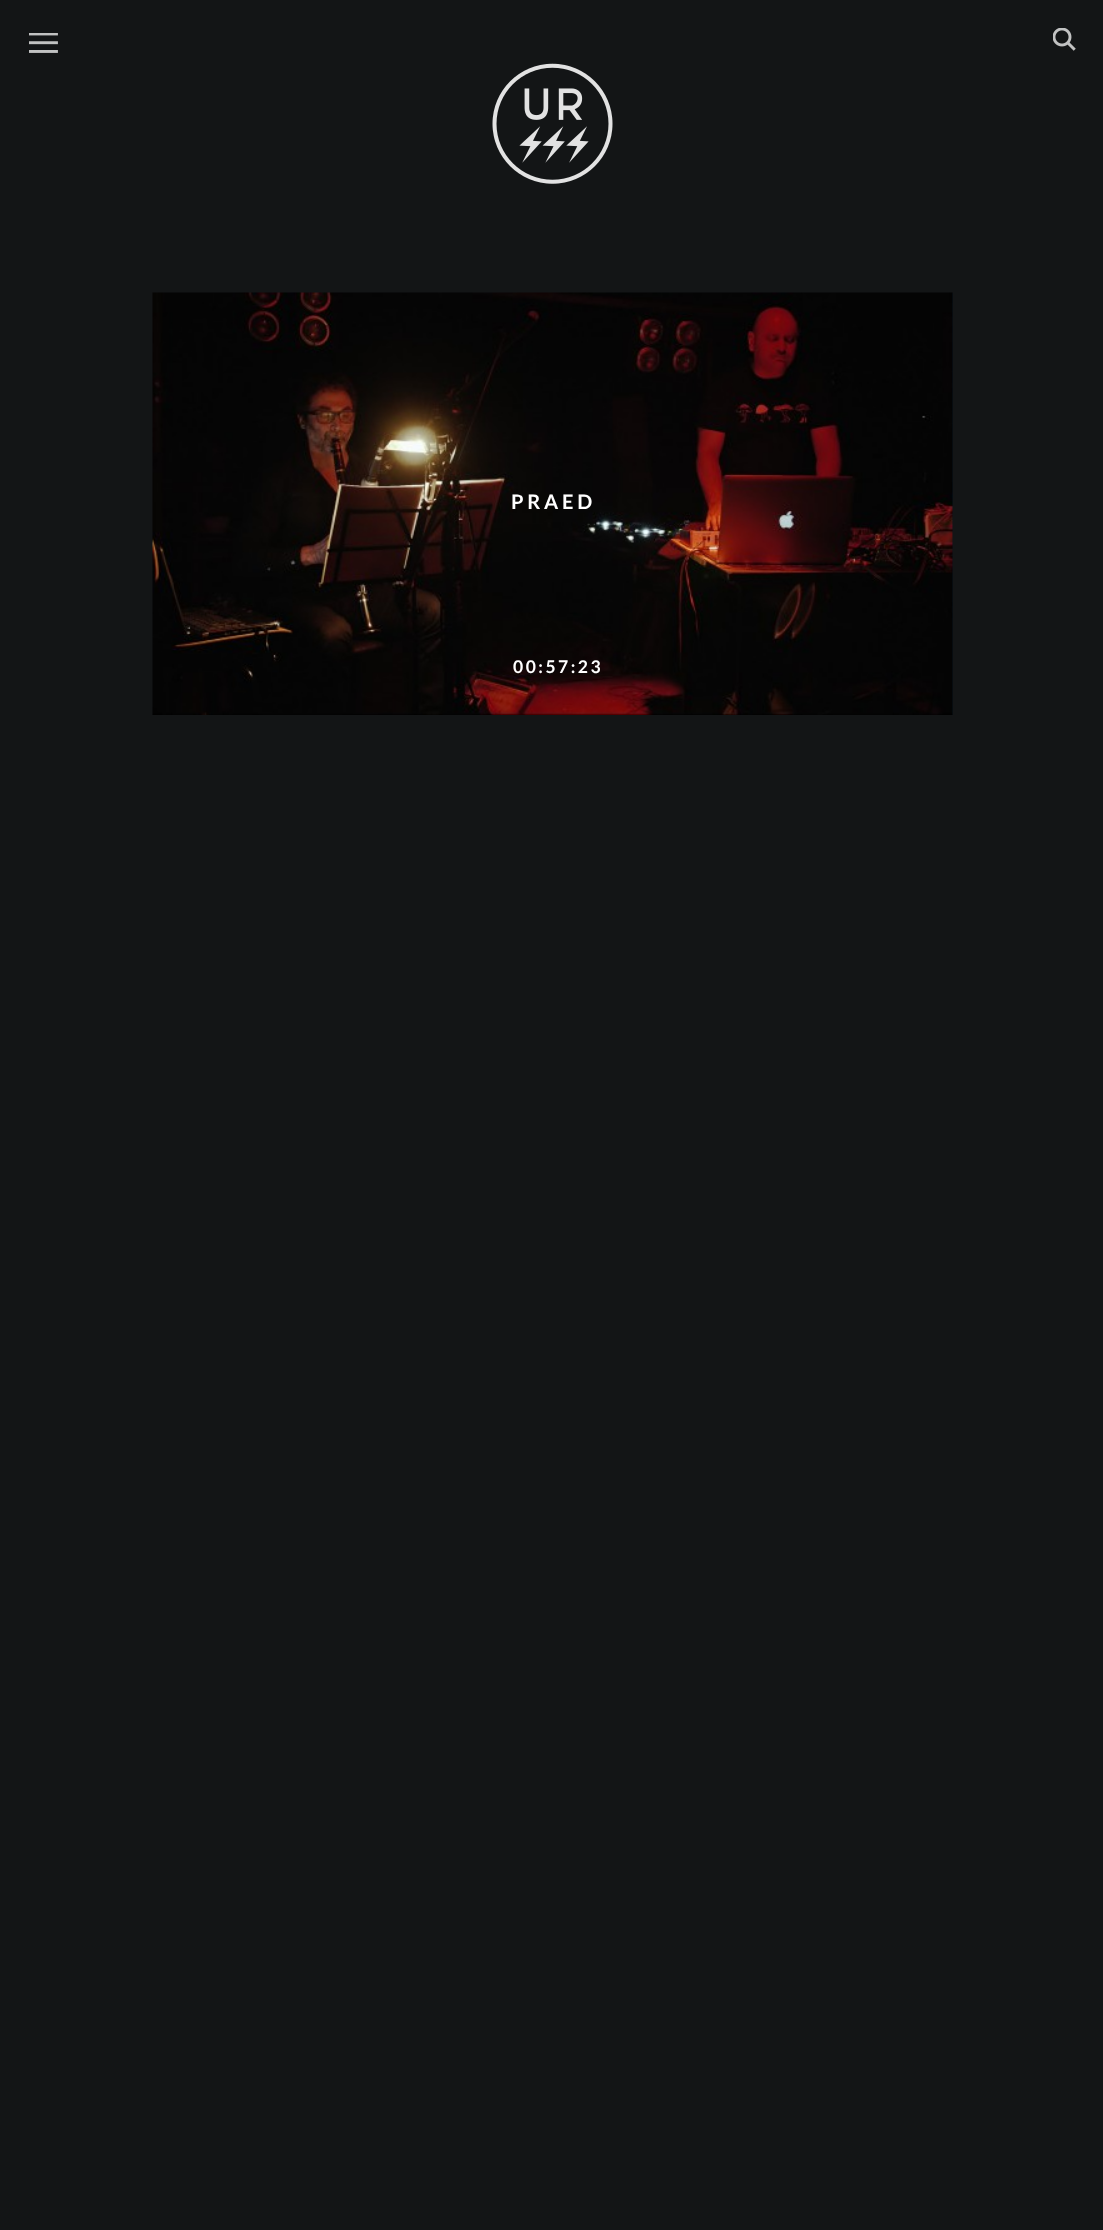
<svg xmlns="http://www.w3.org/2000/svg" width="1103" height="2230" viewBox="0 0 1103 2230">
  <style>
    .t1 { font: bold 20px Lato; letter-spacing: 3.75px; fill: #fff; }
    .t2 { font: bold 17.5px Lato; letter-spacing: 2.5px; fill: #fff; }
  </style>
  <rect width="100%" height="100%" fill="#131516"/>
  <image x="29" y="33" width="29" height="20" href="images/1.png"/>
  <image x="1053" y="28" width="23" height="23" href="images/2.png"/>
  <image x="492" y="63" width="121" height="121" href="images/3.png"/>
  <rect x="952" y="293" width="1" height="422" fill="#0a141d"/>
  <image x="152" y="292" width="801" height="423" href="images/4.png"/>
  <text x="511" y="509" class="t1">PRAED</text>
  <text x="513" y="673" class="t2">00:57:23</text>
</svg>
